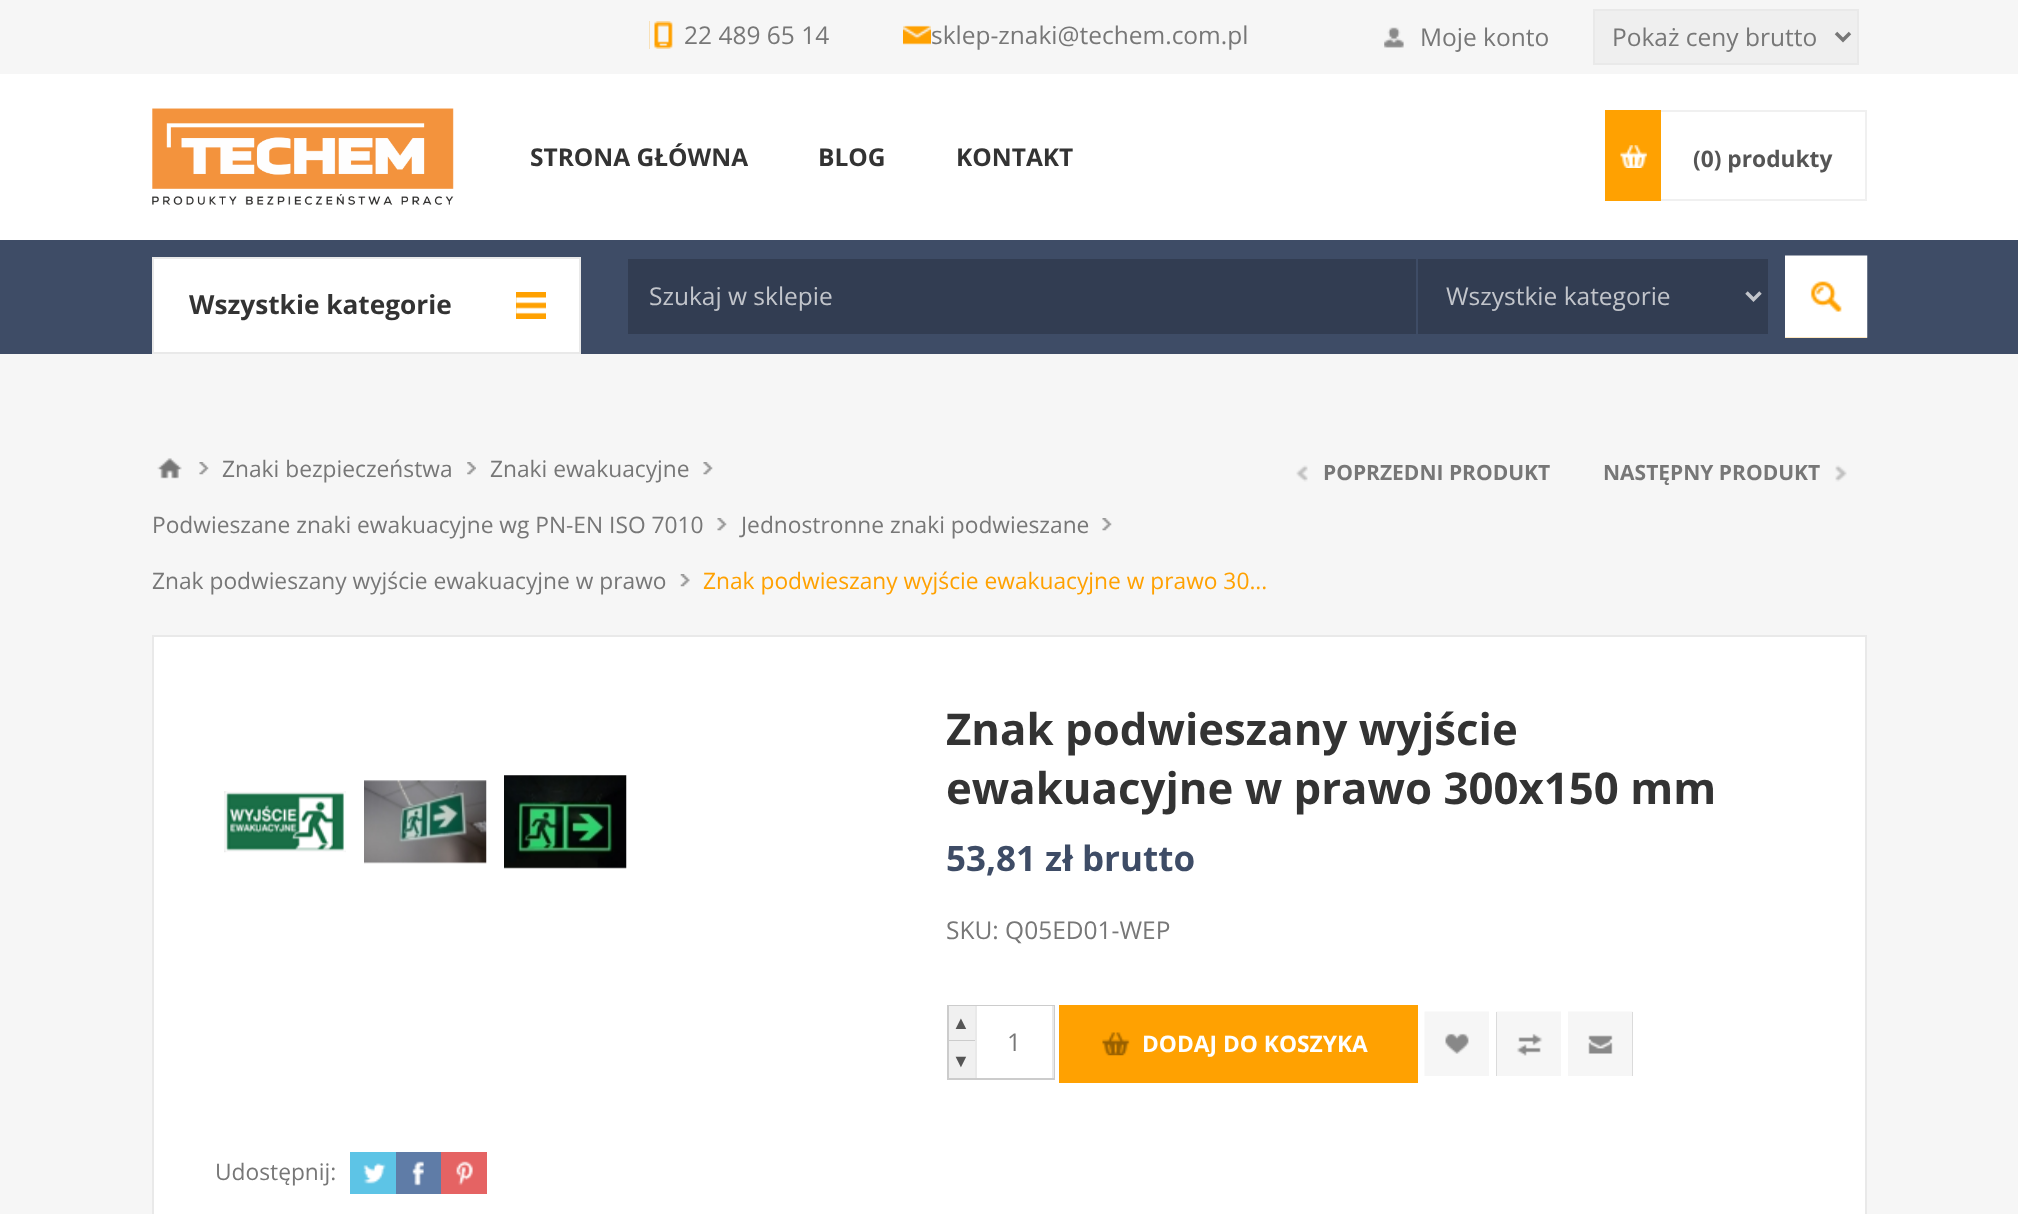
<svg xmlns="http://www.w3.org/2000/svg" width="2018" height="1214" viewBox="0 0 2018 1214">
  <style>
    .t1 { font: 24.5px Open Sans; fill: #777; }
    .t2 { font: bold 24.5px Open Sans; fill: #333; }
    .t3 { font: bold 22.75px Open Sans; fill: #555; }
    .t4 { font: bold 26.25px Open Sans; fill: #333; }
    .t5 { font: 24.5px Open Sans; fill: #c2c5cb; }
    .t6 { font: 22.75px Open Sans; fill: #777; }
    .t7 { font: 22.75px Open Sans; fill: #ffa101; }
    .t8 { font: bold 21px Open Sans; fill: #777; }
    .t9 { font: bold 43.75px Open Sans; fill: #333; }
    .t10 { font: bold 35px Open Sans; fill: #3e4c66; }
    .t11 { font: 18px Liberation Sans; fill: #555; }
    .t12 { font: bold 22.75px Open Sans; fill: #fff; }
  </style>
  <defs>
    <clipPath id="clip1"><rect x="949" y="1006" width="105" height="72"/></clipPath>
  </defs>
  <rect width="100%" height="100%" fill="#f6f6f6"/>
  <rect x="649" y="21" width="24" height="28" fill="#ffa101"/>
  <image x="649" y="21" width="28" height="28" href="images/1.png"/>
  <text x="684" y="44" class="t1">22 489 65 14</text>
  <rect x="903" y="25" width="28" height="20" fill="#ffa101"/>
  <image x="903" y="21" width="28" height="28" href="images/2.png"/>
  <text x="931" y="44" class="t1">sklep-znaki@techem.com.pl</text>
  <image x="1384" y="27" width="20" height="21" href="images/3.png"/>
  <text x="1420" y="46" class="t1">Moje konto</text>
  <rect x="1594" y="10" width="264" height="54" fill="#efefef" stroke="#e9e9e9" stroke-width="2"/>
  <path d="M1836 33L1843 40L1850 33" fill="none" stroke="#777" stroke-width="3.5"/>
  <text x="1612" y="46" class="t1">Pokaż ceny brutto</text>
  <rect x="0" y="74" width="2018" height="166" fill="#fff"/>
  <image x="152" y="108" width="302" height="97" href="images/4.png"/>
  <text x="530" y="166" class="t2">STRONA GŁÓWNA</text>
  <text x="818" y="166" class="t2">BLOG</text>
  <text x="956" y="166" class="t2">KONTAKT</text>
  <rect x="1660" y="111" width="206" height="89" fill="none" stroke="#f0f0f0" stroke-width="2"/>
  <rect x="1605" y="110" width="56" height="91" fill="#ffa101"/>
  <image x="1620" y="145" width="27" height="23" href="images/5.png"/>
  <text x="1693" y="167" class="t3">(0) produkty</text>
  <rect x="0" y="240" width="2018" height="114" fill="#3e4c66"/>
  <rect x="153" y="258" width="427" height="95" fill="#fff" stroke="#e9e9e9" stroke-width="2"/>
  <text x="189" y="314" class="t4">Wszystkie kategorie</text>
  <rect x="516" y="292" width="30" height="27" fill="#ffa101"/>
  <image x="516" y="297" width="30" height="17" href="images/6.png"/>
  <rect x="628" y="259" width="788" height="75" fill="#323d52"/>
  <text x="649" y="305" class="t5">Szukaj w sklepie</text>
  <rect x="1418" y="259" width="350" height="75" fill="#323d52"/>
  <path d="M1746.5 292.5L1753.5 299.5L1760.5 292.5" fill="none" stroke="#c2c5cb" stroke-width="3.5"/>
  <text x="1446" y="305" class="t5">Wszystkie kategorie</text>
  <rect x="1785" y="281" width="82" height="57" fill="#ffa101"/>
  <image x="1785" y="255" width="83" height="83" href="images/7.png"/>
  <image x="157" y="458" width="25" height="21" href="images/8.png"/>
  <image x="199" y="462" width="10" height="13" href="images/9.png"/>
  <text x="222" y="477" class="t6">Znaki bezpieczeństwa</text>
  <image x="467" y="462" width="9" height="13" href="images/10.png"/>
  <text x="490" y="477" class="t6">Znaki ewakuacyjne</text>
  <image x="703" y="462" width="10" height="13" href="images/9.png"/>
  <text x="152" y="533" class="t6">Podwieszane znaki ewakuacyjne wg PN-EN ISO 7010</text>
  <image x="717" y="518" width="10" height="13" href="images/9.png"/>
  <text x="741" y="533" class="t6">Jednostronne znaki podwieszane</text>
  <image x="1102" y="518" width="10" height="13" href="images/11.png"/>
  <text x="152" y="589" class="t6">Znak podwieszany wyjście ewakuacyjne w prawo</text>
  <image x="680" y="574" width="10" height="13" href="images/12.png"/>
  <text x="703" y="589" class="t7">Znak podwieszany wyjście ewakuacyjne w prawo 30...</text>
  <image x="1296" y="465" width="12" height="17" href="images/13.png"/>
  <text x="1323" y="480" class="t8">POPRZEDNI PRODUKT</text>
  <text x="1603" y="480" class="t8">NASTĘPNY PRODUKT</text>
  <image x="1835" y="465" width="12" height="17" href="images/14.png"/>
  <rect x="153" y="636" width="1713" height="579" fill="#fff" stroke="#e9e9e9" stroke-width="2"/>
  <image x="224" y="791" width="122" height="62" href="images/15.png"/>
  <image x="364" y="780" width="123" height="84" href="images/16.png"/>
  <image x="504" y="775" width="123" height="94" href="images/17.png"/>
  <text x="946" y="745" class="t9">Znak podwieszany wyjście</text>
  <text x="946" y="804" class="t9">ewakuacyjne w prawo 300x150 mm</text>
  <text x="946" y="871" class="t10">53,81 zł brutto</text>
  <text x="946" y="939" class="t1">SKU: Q05ED01-WEP</text>
  <rect x="948" y="1006" width="106" height="73" fill="none" stroke="#ccc" stroke-width="2"/>
  <rect x="949" y="1006" width="26" height="34" fill="#f0f0f0"/>
  <rect x="949" y="1040" width="26" height="1" fill="#ccc"/>
  <text x="952" y="1029" class="t11">▲</text>
  <rect x="949" y="1041" width="26" height="37" fill="#f0f0f0"/>
  <text x="952" y="1067" class="t11">▼</text>
  <rect x="977" y="1006" width="75" height="1" fill="#fff"/>
  <g clip-path="url(#clip1)">
    <rect x="976" y="1004" width="77" height="77" fill="none" stroke="#e9e9e9" stroke-width="2"/>
  </g>
  <text x="1007" y="1051" class="t1">1</text>
  <rect x="1059" y="1005" width="359" height="78" fill="#ffa101"/>
  <image x="1102" y="1032" width="28" height="24" href="images/18.png"/>
  <text x="1142" y="1052" class="t12">DODAJ DO KOSZYKA</text>
  <rect x="1445" y="1033" width="24" height="21" fill="#888"/>
  <image x="1424" y="1011" width="65" height="65" href="images/19.png"/>
  <rect x="1496" y="1012" width="47" height="64" fill="#888"/>
  <image x="1496" y="1011" width="65" height="65" href="images/20.png"/>
  <rect x="1588" y="1012" width="45" height="64" fill="#888"/>
  <image x="1568" y="1011" width="65" height="65" href="images/21.png"/>
  <text x="215" y="1180" class="t6">Udostępnij:</text>
  <rect x="350" y="1152" width="46" height="42" fill="#5dc4e6"/>
  <image x="363" y="1163" width="23" height="21" href="images/22.png"/>
  <rect x="396" y="1152" width="45" height="42" fill="#5f7ca7"/>
  <image x="412" y="1161" width="12" height="25" href="images/23.png"/>
  <rect x="441" y="1152" width="46" height="42" fill="#e56363"/>
  <image x="456" y="1161" width="17" height="25" href="images/24.png"/>
</svg>
